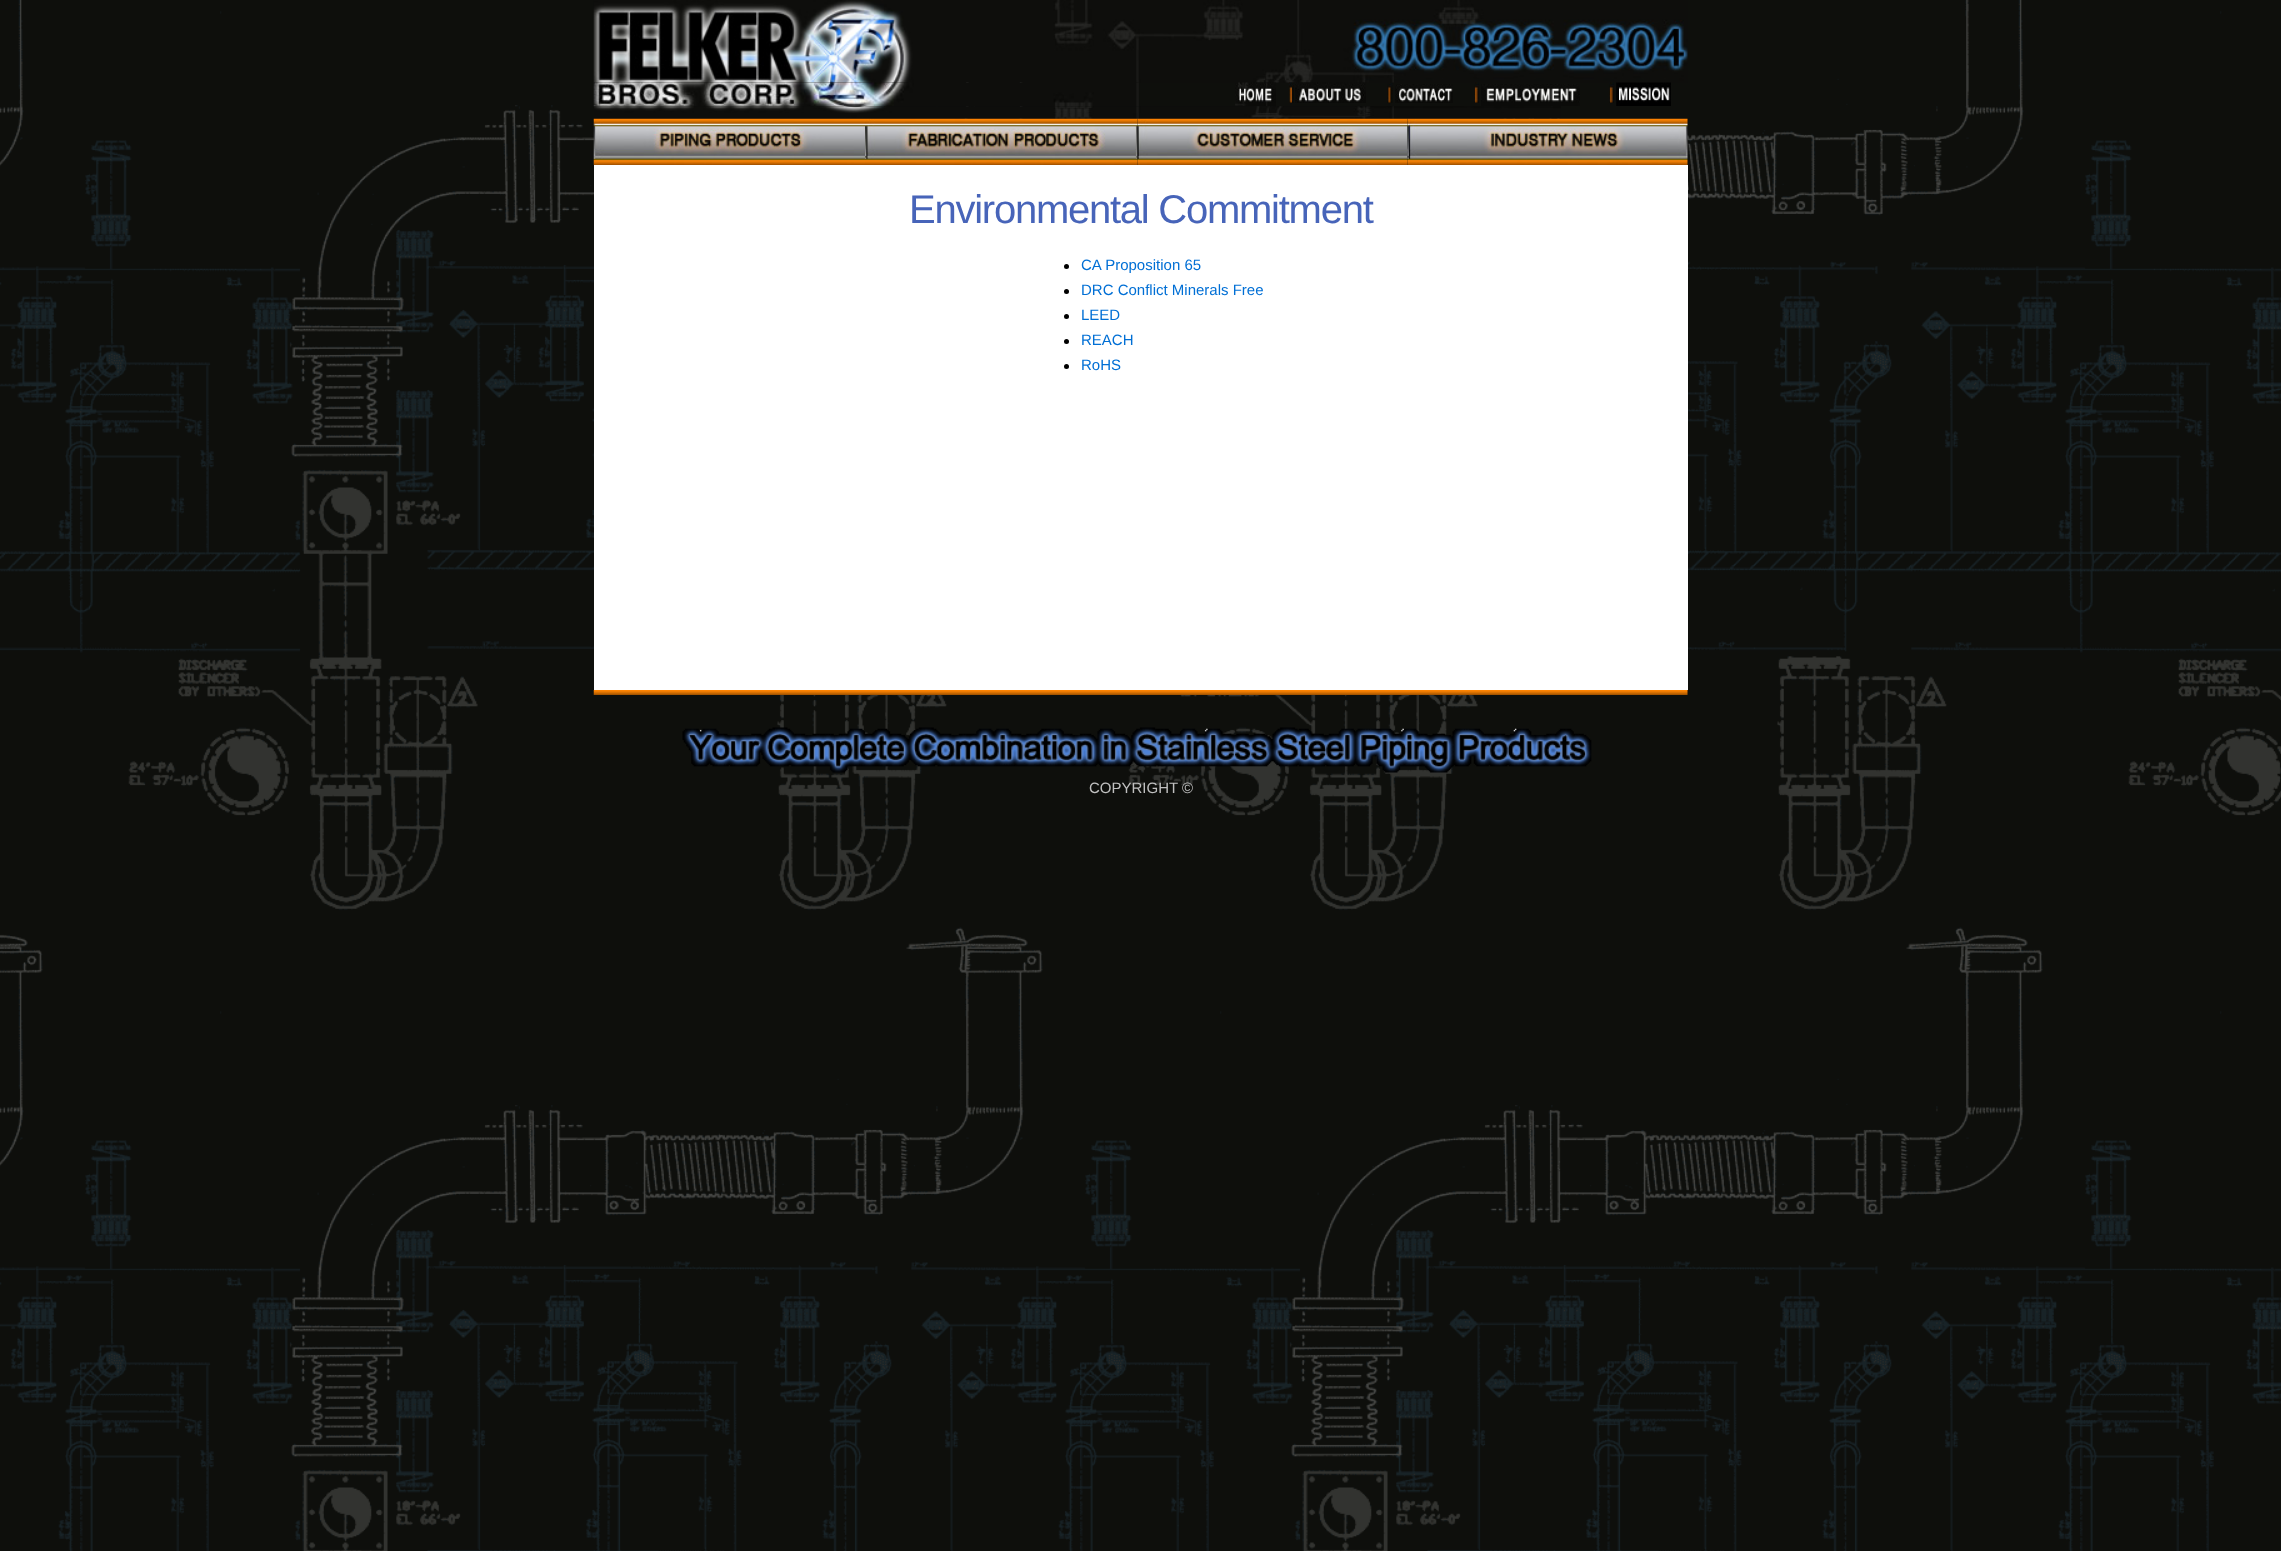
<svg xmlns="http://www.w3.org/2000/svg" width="2281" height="1551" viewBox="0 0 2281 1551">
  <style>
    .t1 { font: 40px Liberation Sans; letter-spacing: -1.25px; fill: #4764b9; }
    .t2 { font: 15px Liberation Sans; fill: #006fd5; }
    .t3 { font: 15px Liberation Sans; fill: #c0c0c0; }
  </style>
  <rect width="100%" height="100%" fill="#fff"/>
  <image x="0" y="0" width="2281" height="1551" href="images/1.png"/>
  <image x="593" y="0" width="1095" height="83" href="images/2.png"/>
  <image x="593" y="82" width="546" height="25" href="images/3.png"/>
  <image x="1235" y="82" width="41" height="24" href="images/4.png"/>
  <image x="1289" y="82" width="5" height="21" href="images/5.png"/>
  <image x="1295" y="82" width="71" height="21" href="images/6.png"/>
  <image x="1387" y="83" width="6" height="20" href="images/7.png"/>
  <image x="1395" y="84" width="58" height="19" href="images/8.png"/>
  <image x="1474" y="82" width="5" height="21" href="images/9.png"/>
  <image x="1481" y="84" width="99" height="22" href="images/10.png"/>
  <image x="1609" y="82" width="5" height="21" href="images/11.png"/>
  <image x="1616" y="82" width="55" height="24" href="images/12.png"/>
  <image x="594" y="106" width="967" height="13" href="images/13.png"/>
  <image x="593" y="118" width="272" height="47" href="images/14.png"/>
  <image x="865" y="118" width="273" height="47" href="images/15.png"/>
  <image x="1137" y="118" width="271" height="47" href="images/16.png"/>
  <image x="1407" y="118" width="281" height="47" href="images/17.png"/>
  <rect x="594" y="165" width="1094" height="525" fill="#fff"/>
  <text x="909" y="223" class="t1">Environmental Commitment</text>
  <circle cx="1066.5" cy="266.5" r="2.5" fill="#000"/>
  <text x="1081" y="270" class="t2">CA Proposition 65</text>
  <circle cx="1066.5" cy="291.5" r="2.5" fill="#000"/>
  <text x="1081" y="295" class="t2">DRC Conflict Minerals Free</text>
  <circle cx="1066.5" cy="316.5" r="2.5" fill="#000"/>
  <text x="1081" y="320" class="t2">LEED</text>
  <circle cx="1066.5" cy="341.5" r="2.5" fill="#000"/>
  <text x="1081" y="345" class="t2">REACH</text>
  <circle cx="1066.5" cy="366.5" r="2.5" fill="#000"/>
  <text x="1081" y="370" class="t2">RoHS</text>
  <image x="593" y="690" width="1095" height="5" href="images/18.png"/>
  <image x="682" y="727" width="910" height="46" href="images/19.png"/>
  <text x="1089" y="793" class="t3">COPYRIGHT ©</text>
</svg>
